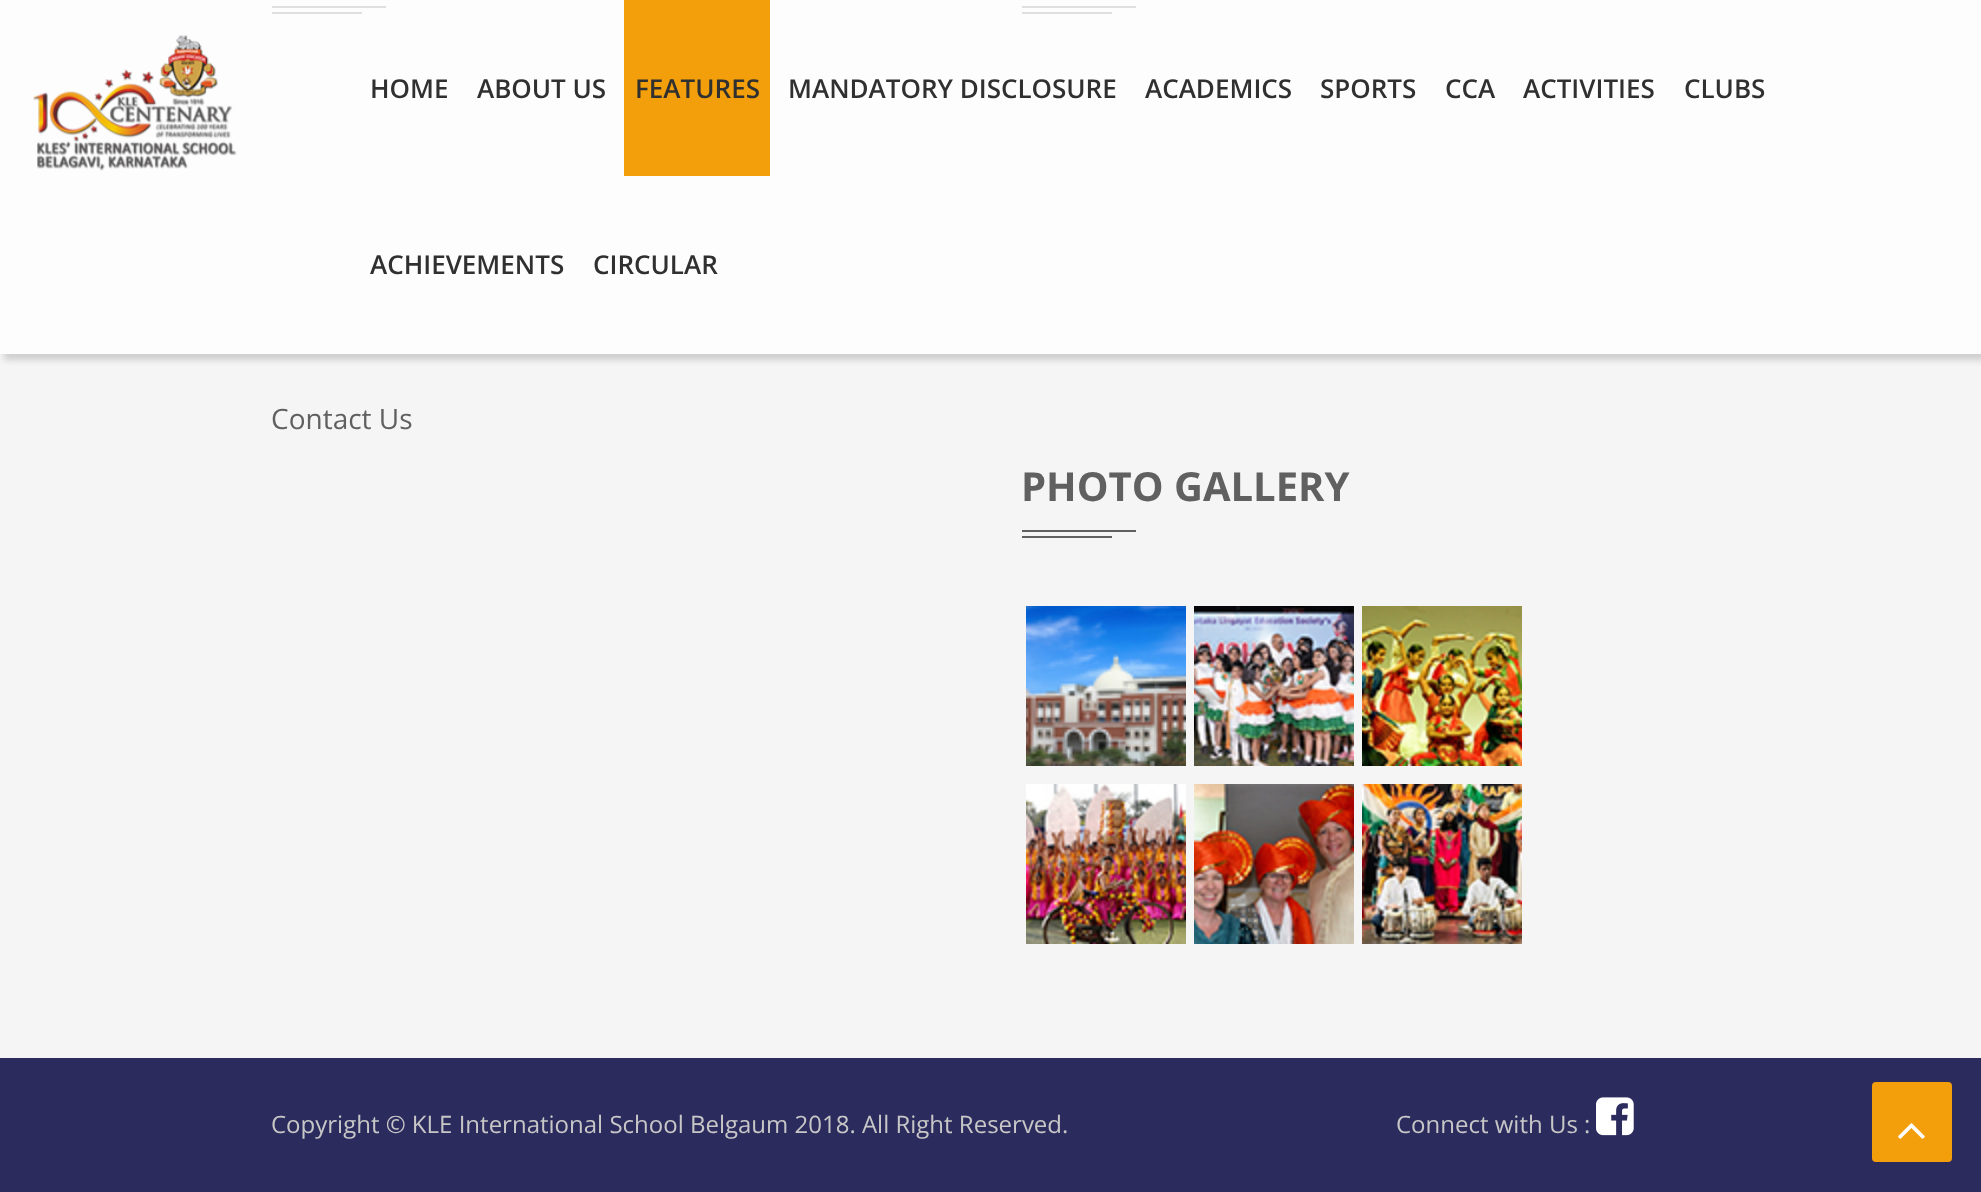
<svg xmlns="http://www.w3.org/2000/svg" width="1981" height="1192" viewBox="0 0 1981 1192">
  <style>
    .t1 { font: 600 26px Open Sans; fill: #303030; }
    .t2 { font: 28px Open Sans; fill: #606060; }
    .t3 { font: bold 40px Open Sans; fill: #606060; }
    .t4 { font: 24px Open Sans; fill: #c7c7c7; }
  </style>
  <defs>
    <clipPath id="clip1"><rect x="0" y="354" width="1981" height="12"/></clipPath>
  </defs>
  <rect width="100%" height="100%" fill="#f5f5f5"/>
  <rect x="1022" y="6" width="114" height="2" fill="#606060"/>
  <rect x="1022" y="12" width="90" height="2" fill="#606060"/>
  <rect x="272" y="6" width="114" height="2" fill="#606060"/>
  <rect x="272" y="12" width="90" height="2" fill="#606060"/>
  <g clip-path="url(#clip1)">
    <rect x="4" y="6" width="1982" height="354" fill="#cecece" filter="blur(3px)"/>
  </g>
  <rect x="0" y="0" width="1981" height="354" fill="#ffffffcc"/>
  <image x="33" y="35" width="204" height="136" href="images/1.png"/>
  <text x="370" y="98" class="t1">HOME</text>
  <text x="477" y="98" class="t1">ABOUT US</text>
  <rect x="624" y="0" width="146" height="176" fill="#f39f0c"/>
  <text x="635" y="98" class="t1">FEATURES</text>
  <text x="788" y="98" class="t1">MANDATORY DISCLOSURE</text>
  <text x="1145" y="98" class="t1">ACADEMICS</text>
  <text x="1320" y="98" class="t1">SPORTS</text>
  <text x="1445" y="98" class="t1">CCA</text>
  <text x="1523" y="98" class="t1">ACTIVITIES</text>
  <text x="1684" y="98" class="t1">CLUBS</text>
  <text x="370" y="274" class="t1">ACHIEVEMENTS</text>
  <text x="593" y="274" class="t1">CIRCULAR</text>
  <text x="271" y="429" class="t2">Contact Us</text>
  <text x="1021" y="501" class="t3">PHOTO GALLERY</text>
  <rect x="1022" y="530" width="114" height="2" fill="#606060"/>
  <rect x="1022" y="536" width="90" height="2" fill="#606060"/>
  <image x="1026" y="606" width="160" height="160" href="images/2.png"/>
  <image x="1194" y="606" width="160" height="160" href="images/3.png"/>
  <image x="1362" y="606" width="160" height="160" href="images/4.png"/>
  <image x="1026" y="784" width="160" height="160" href="images/5.png"/>
  <image x="1194" y="784" width="160" height="160" href="images/6.png"/>
  <image x="1362" y="784" width="160" height="160" href="images/7.png"/>
  <rect x="0" y="1058" width="1981" height="134" fill="#2c2b5e"/>
  <text x="271" y="1133" class="t4">Copyright © KLE International School Belgaum 2018. All Right Reserved.</text>
  <text x="1396" y="1133" class="t4">Connect with Us :</text>
  <image x="1596" y="1097" width="38" height="39" href="images/8.png"/>
  <rect x="1872" y="1082" width="80" height="80" rx="4" fill="#f39f0c"/>
  <image x="1898" y="1123" width="27" height="16" href="images/9.png"/>
</svg>
